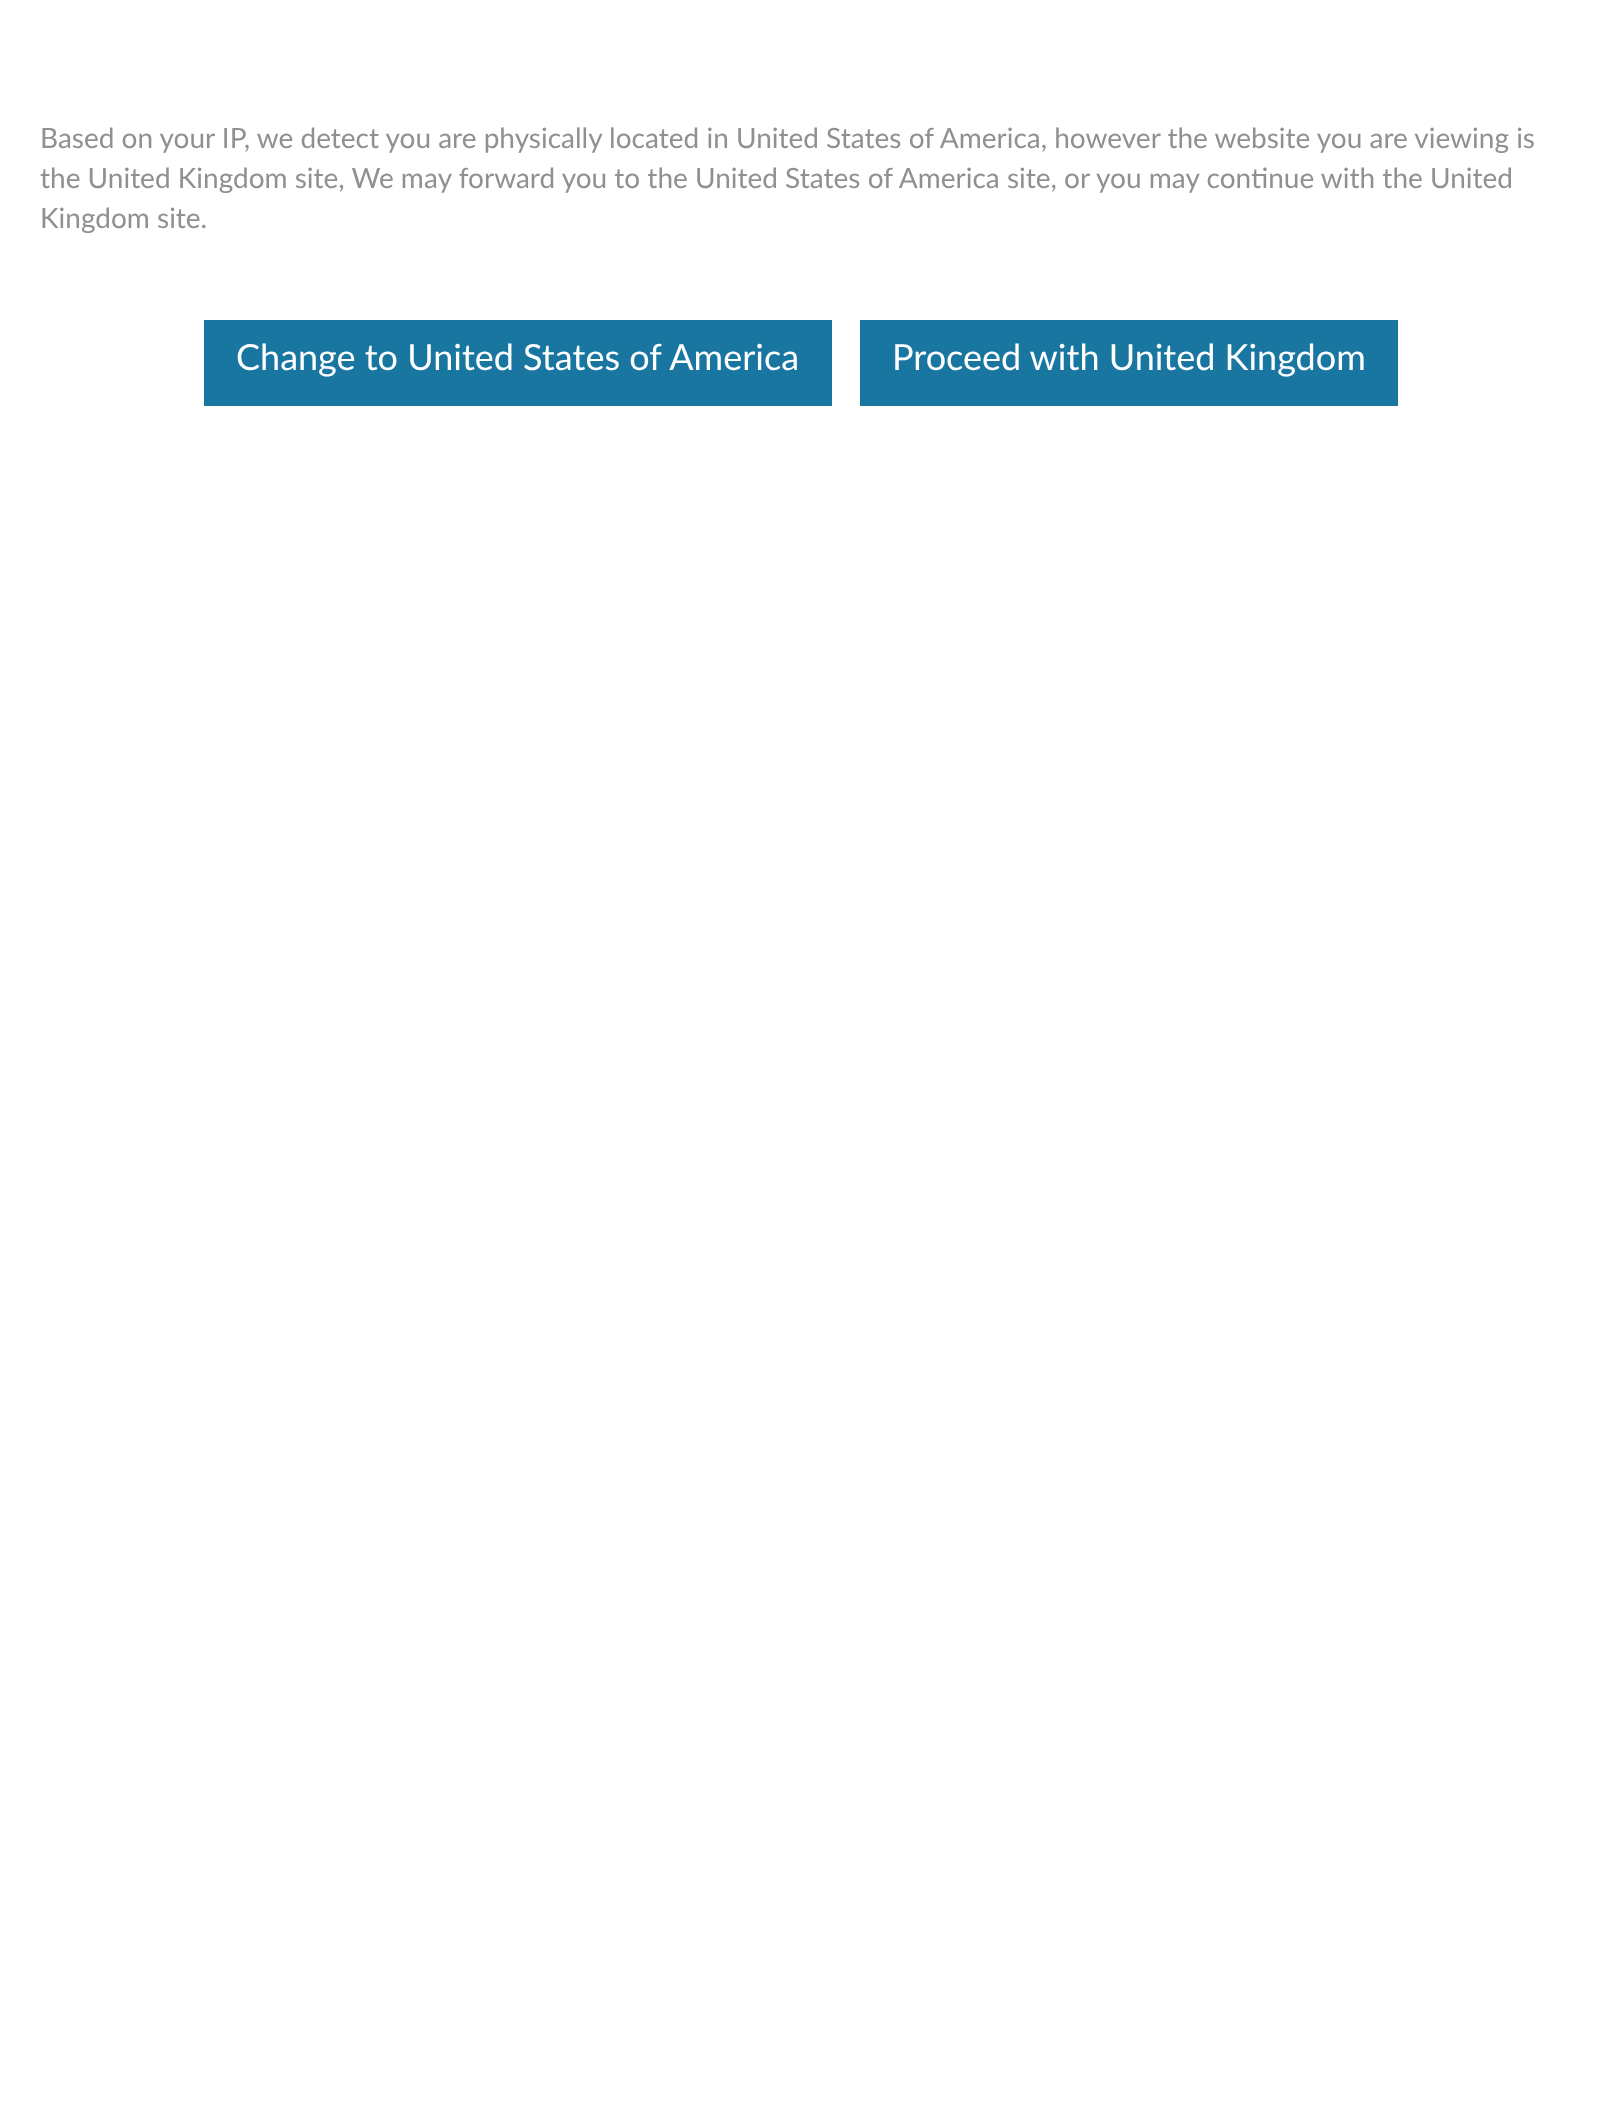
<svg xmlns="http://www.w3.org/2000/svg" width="1601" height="2104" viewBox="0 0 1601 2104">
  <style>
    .t1 { font: 28px Lato; fill: #909090; }
    .t2 { font: 36px Lato; fill: #fff; }
  </style>
  <rect width="100%" height="100%" fill="#fff"/>
  <text x="40" y="148" class="t1">Based on your IP, we detect you are physically located in United States of America, however the website you are viewing is</text>
  <text x="40" y="188" class="t1">the United Kingdom site, We may forward you to the United States of America site, or you may continue with the United</text>
  <text x="40" y="228" class="t1">Kingdom site.</text>
  <rect x="204" y="320" width="628" height="86" fill="#1976a1"/>
  <text x="236" y="370" class="t2">Change to United States of America</text>
  <rect x="860" y="320" width="538" height="86" fill="#1976a1"/>
  <text x="892" y="370" class="t2">Proceed with United Kingdom</text>
</svg>
